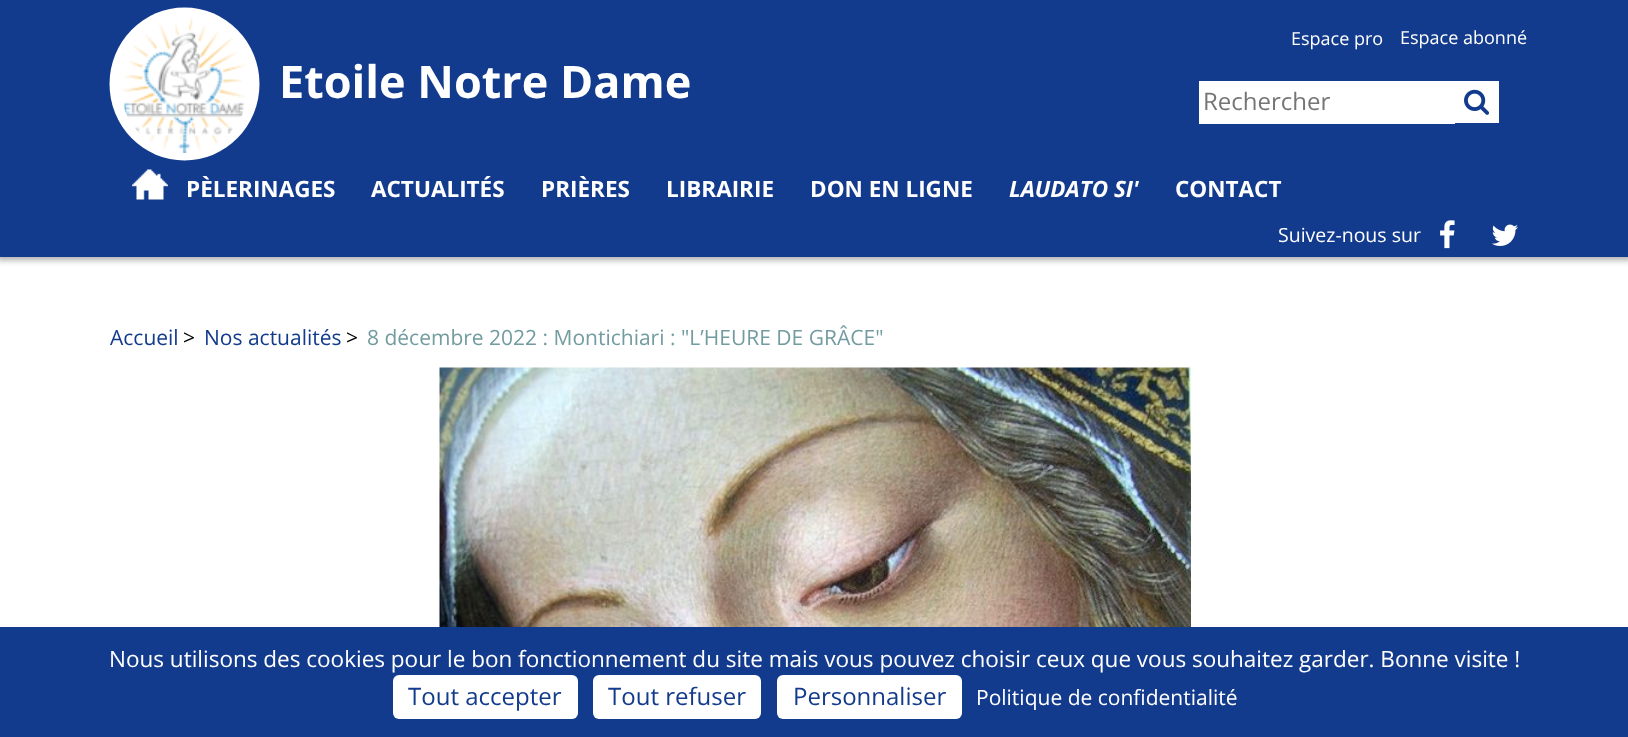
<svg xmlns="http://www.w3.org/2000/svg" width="1628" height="737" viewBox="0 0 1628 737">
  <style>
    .t1 { font: bold 45px Open Sans; fill: #fff; }
    .t2 { font: 18px Open Sans; fill: #fff; }
    .t3 { font: 24px Open Sans; fill: #757575; }
    .t4 { font: bold 22.5px Open Sans; fill: #fff; }
    .t5 { font: italic bold 22.5px Open Sans; fill: #fff; }
    .t6 { font: 19.5px Open Sans; fill: #fff; }
    .t7 { font: 21px Open Sans; fill: #133b8d; }
    .t8 { font: 21px Open Sans; fill: #000; }
    .t9 { font: 21px Open Sans; fill: #739ca1; }
    .t10 { font: 22.5px Open Sans; fill: #fff; }
    .t11 { font: 24px Open Sans; fill: #133b8d; }
    .t12 { font: 21px Open Sans; fill: #fff; }
  </style>
  <rect width="100%" height="100%" fill="#fff"/>
  <rect x="-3" y="-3" width="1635" height="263" fill="#aaa" filter="blur(3px)"/>
  <rect x="0" y="0" width="1628" height="257" fill="#133b8d"/>
  <ellipse cx="184.5" cy="84" rx="75" ry="76.5" fill="#fff"/>
  <image x="122" y="16" width="124" height="137" href="images/1.png"/>
  <text x="279" y="98" class="t1">Etoile Notre Dame</text>
  <text x="1291" y="45" class="t2">Espace pro</text>
  <text x="1400" y="44" class="t2">Espace abonné</text>
  <rect x="1199" y="81" width="256" height="43" fill="#fff"/>
  <text x="1203" y="110" class="t3">Rechercher</text>
  <rect x="1455" y="81" width="44" height="42" fill="#fff"/>
  <image x="1464" y="89" width="25" height="26" href="images/2.png"/>
  <image x="132" y="169" width="36" height="31" href="images/3.png"/>
  <text x="186" y="197" class="t4">PÈLERINAGES</text>
  <text x="371" y="197" class="t4">ACTUALITÉS</text>
  <text x="541" y="197" class="t4">PRIÈRES</text>
  <text x="666" y="197" class="t4">LIBRAIRIE</text>
  <text x="810" y="197" class="t4">DON EN LIGNE</text>
  <text x="1009" y="197" class="t5">LAUDATO SI'</text>
  <text x="1175" y="197" class="t4">CONTACT</text>
  <text x="1278" y="242" class="t6">Suivez-nous sur</text>
  <image x="1440" y="220" width="15" height="29" href="images/4.png"/>
  <image x="1492" y="224" width="26" height="22" href="images/5.png"/>
  <text x="110" y="345" class="t7">Accueil</text>
  <text x="183" y="345" class="t8">&gt;</text>
  <text x="204" y="345" class="t7">Nos actualités</text>
  <text x="346" y="345" class="t8">&gt;</text>
  <text x="367" y="345" class="t9">8 décembre 2022 : Montichiari : "L’HEURE DE GRÂCE"</text>
  <image x="439" y="367" width="752" height="260" href="images/6.png"/>
  <rect x="0" y="627" width="1628" height="110" fill="#133b8d"/>
  <text x="109" y="667" class="t10">Nous utilisons des cookies pour le bon fonctionnement du site mais vous pouvez choisir ceux que vous souhaitez garder. Bonne visite !</text>
  <rect x="393" y="675" width="185" height="44" rx="6" fill="#fff"/>
  <text x="408" y="705" class="t11">Tout accepter</text>
  <rect x="593" y="675" width="168" height="44" rx="6" fill="#fff"/>
  <text x="608" y="705" class="t11">Tout refuser</text>
  <rect x="777" y="675" width="185" height="44" rx="6" fill="#fff"/>
  <text x="793" y="705" class="t11">Personnaliser</text>
  <text x="976" y="705" class="t12">Politique de confidentialité</text>
</svg>
